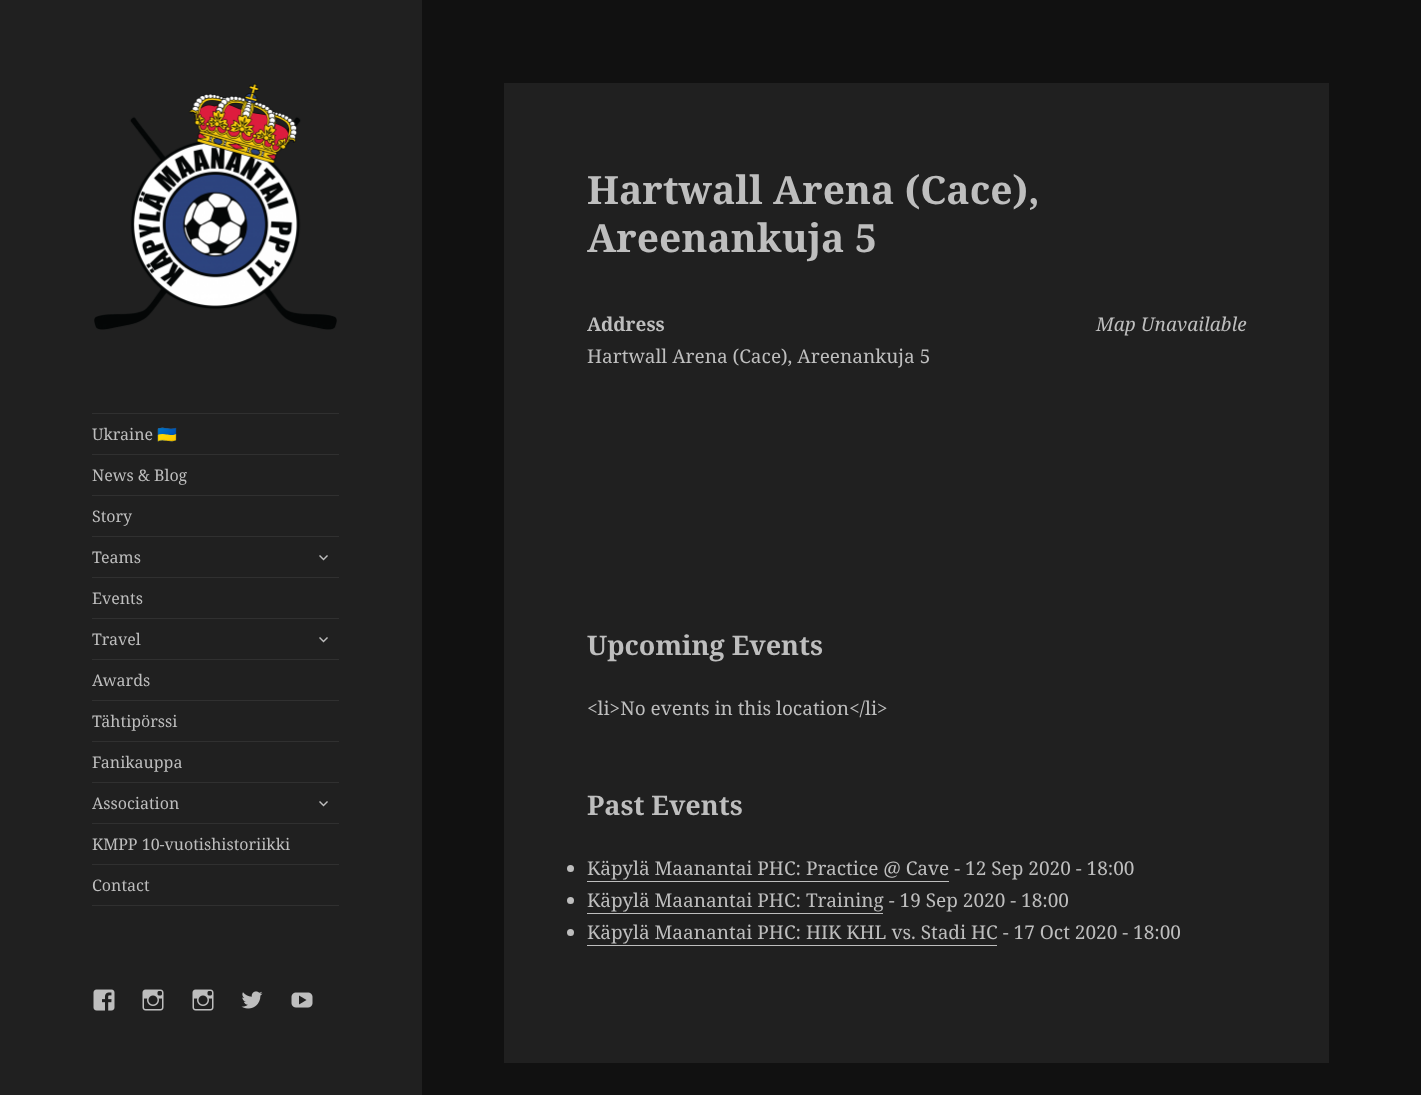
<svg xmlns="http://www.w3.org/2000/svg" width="1421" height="1095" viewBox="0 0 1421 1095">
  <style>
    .t1 { font: 16px Noto Serif; fill: #bebebe; }
    .t2 { font: 16px Noto Color Emoji; fill: #bebebe; }
    .t3 { font: bold 39px Noto Serif; fill: #bebebe; }
    .t4 { font: bold 19px Noto Serif; fill: #bebebe; }
    .t5 { font: 19px Noto Serif; fill: #bebebe; }
    .t6 { font: italic 19px Noto Serif; fill: #bebebe; }
    .t7 { font: bold 27px Noto Serif; fill: #bebebe; }
  </style>
  <rect width="100%" height="100%" fill="#111"/>
  <rect x="0" y="0" width="422" height="1095" fill="#202020"/>
  <image x="94" y="83" width="243" height="247" href="images/1.png"/>
  <rect x="92" y="413" width="247" height="1" fill="#303030"/>
  <rect x="92" y="905" width="247" height="1" fill="#303030"/>
  <text x="92" y="440" class="t1">Ukraine</text>
  <text x="157" y="440" class="t2">🇺🇦</text>
  <rect x="92" y="454" width="247" height="1" fill="#303030"/>
  <text x="92" y="481" class="t1">News &amp; Blog</text>
  <rect x="92" y="495" width="247" height="1" fill="#303030"/>
  <text x="92" y="522" class="t1">Story</text>
  <rect x="92" y="536" width="247" height="1" fill="#303030"/>
  <text x="92" y="563" class="t1">Teams</text>
  <image x="319" y="555" width="9" height="6" href="images/2.png"/>
  <rect x="92" y="577" width="247" height="1" fill="#303030"/>
  <text x="92" y="604" class="t1">Events</text>
  <rect x="92" y="618" width="247" height="1" fill="#303030"/>
  <text x="92" y="645" class="t1">Travel</text>
  <image x="319" y="637" width="9" height="6" href="images/2.png"/>
  <rect x="92" y="659" width="247" height="1" fill="#303030"/>
  <text x="92" y="686" class="t1">Awards</text>
  <rect x="92" y="700" width="247" height="1" fill="#303030"/>
  <text x="92" y="727" class="t1">Tähtipörssi</text>
  <rect x="92" y="741" width="247" height="1" fill="#303030"/>
  <text x="92" y="768" class="t1">Fanikauppa</text>
  <rect x="92" y="782" width="247" height="1" fill="#303030"/>
  <text x="92" y="809" class="t1">Association</text>
  <image x="319" y="801" width="9" height="6" href="images/2.png"/>
  <rect x="92" y="823" width="247" height="1" fill="#303030"/>
  <text x="92" y="850" class="t1">KMPP 10-vuotishistoriikki</text>
  <rect x="92" y="864" width="247" height="1" fill="#303030"/>
  <text x="92" y="891" class="t1">Contact</text>
  <image x="93" y="989" width="22" height="22" href="images/3.png"/>
  <image x="142" y="989" width="22" height="22" href="images/4.png"/>
  <image x="192" y="989" width="22" height="22" href="images/4.png"/>
  <image x="241" y="991" width="22" height="18" href="images/5.png"/>
  <image x="291" y="992" width="22" height="16" href="images/6.png"/>
  <rect x="504" y="83" width="825" height="980" fill="#202020"/>
  <text x="587" y="204" class="t3">Hartwall Arena (Cace),</text>
  <text x="587" y="252" class="t3">Areenankuja 5</text>
  <text x="587" y="331" class="t4">Address</text>
  <text x="587" y="363" class="t5">Hartwall Arena (Cace), Areenankuja 5</text>
  <text x="1096" y="331" class="t6">Map Unavailable</text>
  <text x="587" y="655" class="t7">Upcoming Events</text>
  <text x="587" y="715" class="t5">&lt;li&gt;No events in this location&lt;/li&gt;</text>
  <text x="587" y="815" class="t7">Past Events</text>
  <circle cx="570.5" cy="868.5" r="3.5" fill="#bebebe"/>
  <text x="587" y="875" class="t5">Käpylä Maanantai PHC: Practice @ Cave - 12 Sep 2020 - 18:00</text>
  <rect x="587" y="881" width="362" height="1" fill="#bebebe"/>
  <circle cx="570.5" cy="900.5" r="3.5" fill="#bebebe"/>
  <text x="587" y="907" class="t5">Käpylä Maanantai PHC: Training - 19 Sep 2020 - 18:00</text>
  <rect x="587" y="913" width="296" height="1" fill="#bebebe"/>
  <circle cx="570.5" cy="932.5" r="3.5" fill="#bebebe"/>
  <text x="587" y="939" class="t5">Käpylä Maanantai PHC: HIK KHL vs. Stadi HC - 17 Oct 2020 - 18:00</text>
  <rect x="587" y="945" width="410" height="1" fill="#bebebe"/>
</svg>
